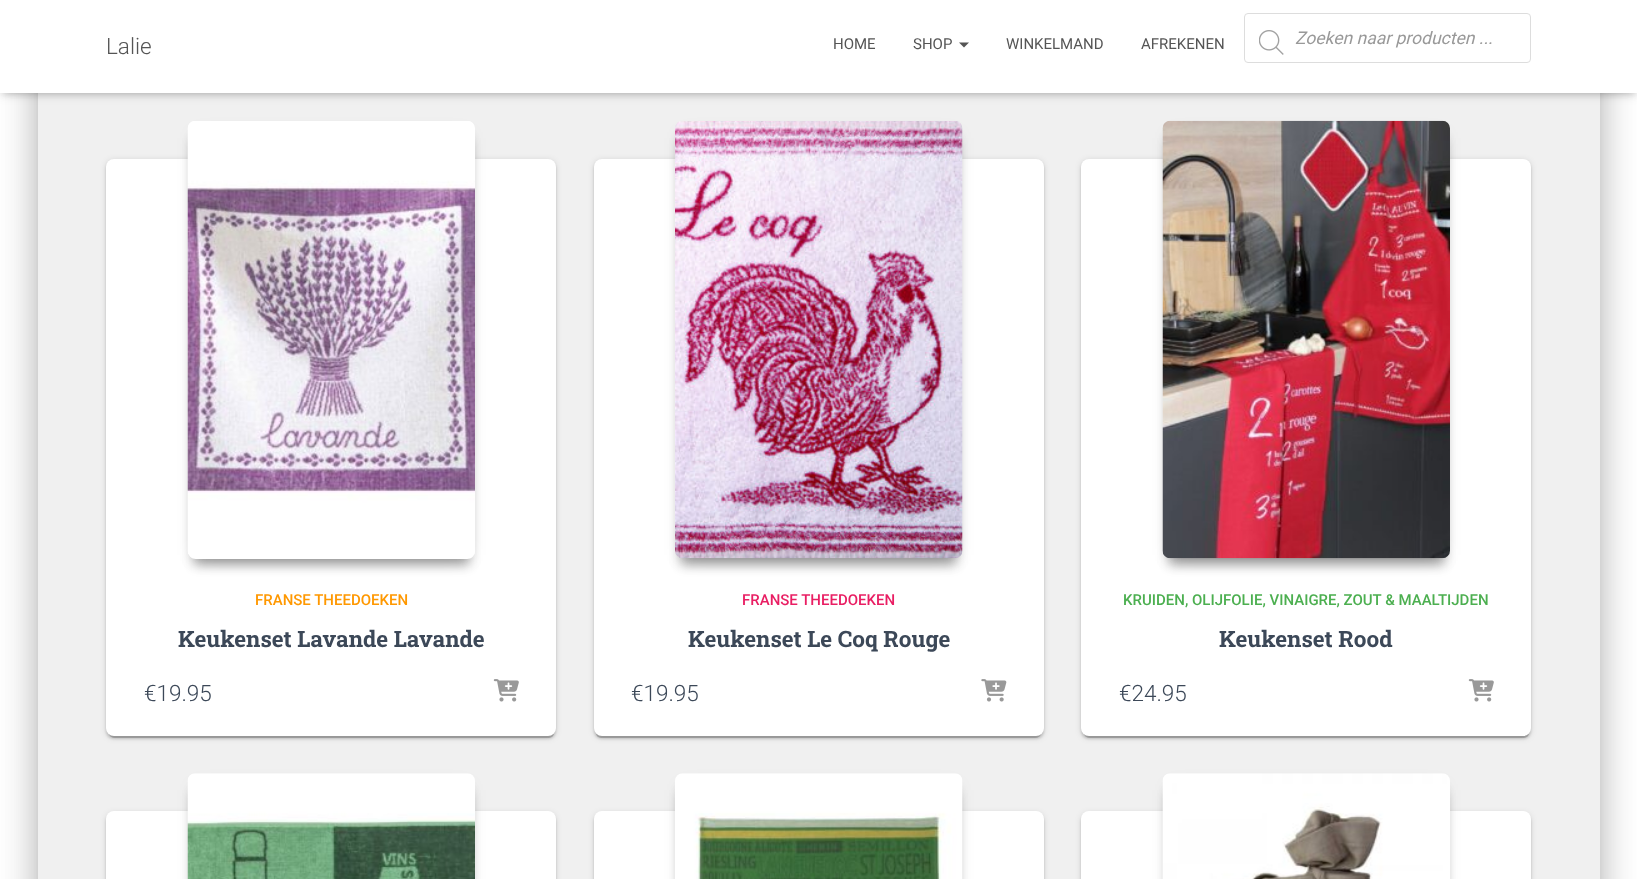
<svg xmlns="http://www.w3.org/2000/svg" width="1637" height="879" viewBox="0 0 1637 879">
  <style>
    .t1 { font: 300 22.5px Roboto; fill: #555; }
    .t2 { font: 15px Roboto; fill: #555; }
    .t3 { font: italic 17.5px Roboto; fill: #999; }
    .t4 { font: 500 15px Roboto; fill: #ff9800; }
    .t5 { font: bold 22.5px Roboto Slab; fill: #3c4858; }
    .t6 { font: 300 22.5px Roboto; fill: #3c4858; }
    .t7 { font: 500 15px Roboto; fill: #e91e63; }
    .t8 { font: 500 15px Roboto; fill: #4caf50; }
  </style>
  <defs>
    <clipPath id="clip1"><path d="M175 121H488V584H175ZM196 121H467C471.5 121 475 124.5 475 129V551C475 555.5 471.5 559 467 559H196C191.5 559 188 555.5 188 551V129C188 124.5 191.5 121 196 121Z" clip-rule="evenodd"/></clipPath>
    <clipPath id="clip2"><path d="M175 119H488V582H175ZM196 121H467C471.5 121 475 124.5 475 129V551C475 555.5 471.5 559 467 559H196C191.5 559 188 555.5 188 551V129C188 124.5 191.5 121 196 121Z" clip-rule="evenodd"/></clipPath>
    <clipPath id="clip3"><path d="M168 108H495V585H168ZM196 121H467C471.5 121 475 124.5 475 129V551C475 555.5 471.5 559 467 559H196C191.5 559 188 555.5 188 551V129C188 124.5 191.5 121 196 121Z" clip-rule="evenodd"/></clipPath>
  </defs>
  <rect width="100%" height="100%" fill="#fff"/>
  <rect x="44" y="-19" width="1550" height="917" rx="1" fill="#00000033" filter="blur(6px)"/>
  <rect x="31" y="-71" width="1575" height="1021" rx="14" fill="#0000001f" filter="blur(19px)"/>
  <rect x="35" y="-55" width="1568" height="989" rx="10" fill="#00000024" filter="blur(15px)"/>
  <rect x="38" y="93" width="1562" height="786" fill="#f0f0f0"/>
  <rect x="3" y="8" width="1632" height="87" fill="#0000001a" filter="blur(3px)"/>
  <rect x="0" y="1" width="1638" height="93" fill="#0000001f" filter="blur(6px)"/>
  <rect x="8" y="9" width="1622" height="77" fill="#0000006b" filter="blur(6px)"/>
  <rect x="0" y="0" width="1637" height="93" fill="#fff"/>
  <text x="106" y="54" class="t1">Lalie</text>
  <text x="833" y="49" class="t2">HOME</text>
  <text x="913" y="49" class="t2">SHOP</text>
  <path d="M959 42.5H969L964 47.5Z" fill="#555"/>
  <text x="1006" y="49" class="t2">WINKELMAND</text>
  <text x="1141" y="49" class="t2">AFREKENEN</text>
  <rect x="1244.5" y="13.5" width="286" height="49" rx="3.5" fill="none" stroke="#ddd"/>
  <image x="1259" y="30" width="25" height="25" href="images/1.png"/>
  <text x="1295" y="44" class="t3">Zoeken naar producten ...</text>
  <rect x="106" y="160" width="450" height="578" rx="8" fill="#0000001f" filter="blur(3px)"/>
  <rect x="109" y="165" width="445" height="573" rx="5" fill="#00000033" filter="blur(0.5px)"/>
  <rect x="106" y="161" width="450" height="578" rx="8" fill="#00000024" filter="blur(1px)"/>
  <rect x="106" y="159" width="450" height="577" rx="8" fill="#fff"/>
  <g clip-path="url(#clip1)">
    <rect x="194" y="140" width="275" height="425" rx="1" fill="#00000033" filter="blur(6px)"/>
  </g>
  <g clip-path="url(#clip2)">
    <rect x="194" y="138" width="275" height="425" rx="1" fill="#00000033" filter="blur(6px)"/>
  </g>
  <g clip-path="url(#clip3)">
    <rect x="198" y="138" width="267" height="417" fill="#0000003d" filter="blur(9.5px)"/>
  </g>
  <image x="187" y="121" width="288" height="433" href="images/2.png"/>
  <text x="255" y="605" class="t4">FRANSE THEEDOEKEN</text>
  <text x="178" y="647" class="t5">Keukenset Lavande Lavande</text>
  <text x="144" y="701" class="t6">€19.95</text>
  <image x="493" y="679" width="26" height="23" href="images/3.png"/>
  <rect x="594" y="160" width="450" height="578" rx="8" fill="#0000001f" filter="blur(3px)"/>
  <rect x="596" y="165" width="445" height="573" rx="5" fill="#00000033" filter="blur(0.5px)"/>
  <rect x="594" y="161" width="450" height="578" rx="8" fill="#00000024" filter="blur(1px)"/>
  <rect x="594" y="159" width="450" height="577" rx="8" fill="#fff"/>
  <rect x="681" y="140" width="275" height="425" rx="1" fill="#00000033" filter="blur(6px)"/>
  <rect x="681" y="138" width="275" height="425" rx="1" fill="#00000033" filter="blur(6px)"/>
  <rect x="685" y="138" width="268" height="417" fill="#0000003d" filter="blur(9.5px)"/>
  <image x="675" y="121" width="288" height="438" href="images/4.png"/>
  <text x="742" y="605" class="t7">FRANSE THEEDOEKEN</text>
  <text x="688" y="647" class="t5">Keukenset Le Coq Rouge</text>
  <text x="631" y="701" class="t6">€19.95</text>
  <image x="981" y="679" width="26" height="23" href="images/5.png"/>
  <rect x="1081" y="160" width="450" height="578" rx="8" fill="#0000001f" filter="blur(3px)"/>
  <rect x="1084" y="165" width="445" height="573" rx="5" fill="#00000033" filter="blur(0.5px)"/>
  <rect x="1081" y="161" width="450" height="578" rx="8" fill="#00000024" filter="blur(1px)"/>
  <rect x="1081" y="159" width="450" height="577" rx="8" fill="#fff"/>
  <rect x="1169" y="140" width="275" height="425" rx="1" fill="#00000033" filter="blur(6px)"/>
  <rect x="1169" y="138" width="275" height="425" rx="1" fill="#00000033" filter="blur(6px)"/>
  <rect x="1173" y="138" width="267" height="417" fill="#0000003d" filter="blur(9.5px)"/>
  <image x="1162" y="120" width="288" height="439" href="images/6.png"/>
  <text x="1123" y="605" class="t8">KRUIDEN, OLIJFOLIE, VINAIGRE, ZOUT &amp; MAALTIJDEN</text>
  <text x="1219" y="647" class="t5">Keukenset Rood</text>
  <text x="1119" y="701" class="t6">€24.95</text>
  <image x="1468" y="679" width="26" height="23" href="images/3.png"/>
  <rect x="106" y="813" width="450" height="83" rx="8" fill="#0000001f" filter="blur(3px)"/>
  <rect x="106" y="814" width="450" height="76" rx="8" fill="#00000024" filter="blur(1px)"/>
  <rect x="106" y="811" width="450" height="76" rx="8" fill="#fff"/>
  <rect x="194" y="793" width="275" height="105" rx="1" fill="#00000033" filter="blur(6px)"/>
  <rect x="194" y="790" width="275" height="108" rx="1" fill="#00000033" filter="blur(6px)"/>
  <rect x="198" y="790" width="267" height="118" fill="#0000003d" filter="blur(9.5px)"/>
  <image x="187" y="773" width="288" height="106" href="images/7.png"/>
  <rect x="594" y="813" width="450" height="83" rx="8" fill="#0000001f" filter="blur(3px)"/>
  <rect x="594" y="814" width="450" height="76" rx="8" fill="#00000024" filter="blur(1px)"/>
  <rect x="594" y="811" width="450" height="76" rx="8" fill="#fff"/>
  <rect x="681" y="793" width="275" height="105" rx="1" fill="#00000033" filter="blur(6px)"/>
  <rect x="681" y="790" width="275" height="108" rx="1" fill="#00000033" filter="blur(6px)"/>
  <rect x="685" y="790" width="268" height="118" fill="#0000003d" filter="blur(9.5px)"/>
  <image x="675" y="773" width="288" height="106" href="images/8.png"/>
  <rect x="1081" y="813" width="450" height="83" rx="8" fill="#0000001f" filter="blur(3px)"/>
  <rect x="1081" y="814" width="450" height="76" rx="8" fill="#00000024" filter="blur(1px)"/>
  <rect x="1081" y="811" width="450" height="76" rx="8" fill="#fff"/>
  <rect x="1169" y="793" width="275" height="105" rx="1" fill="#00000033" filter="blur(6px)"/>
  <rect x="1169" y="790" width="275" height="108" rx="1" fill="#00000033" filter="blur(6px)"/>
  <rect x="1173" y="790" width="267" height="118" fill="#0000003d" filter="blur(9.5px)"/>
  <image x="1162" y="773" width="288" height="106" href="images/9.png"/>
</svg>
